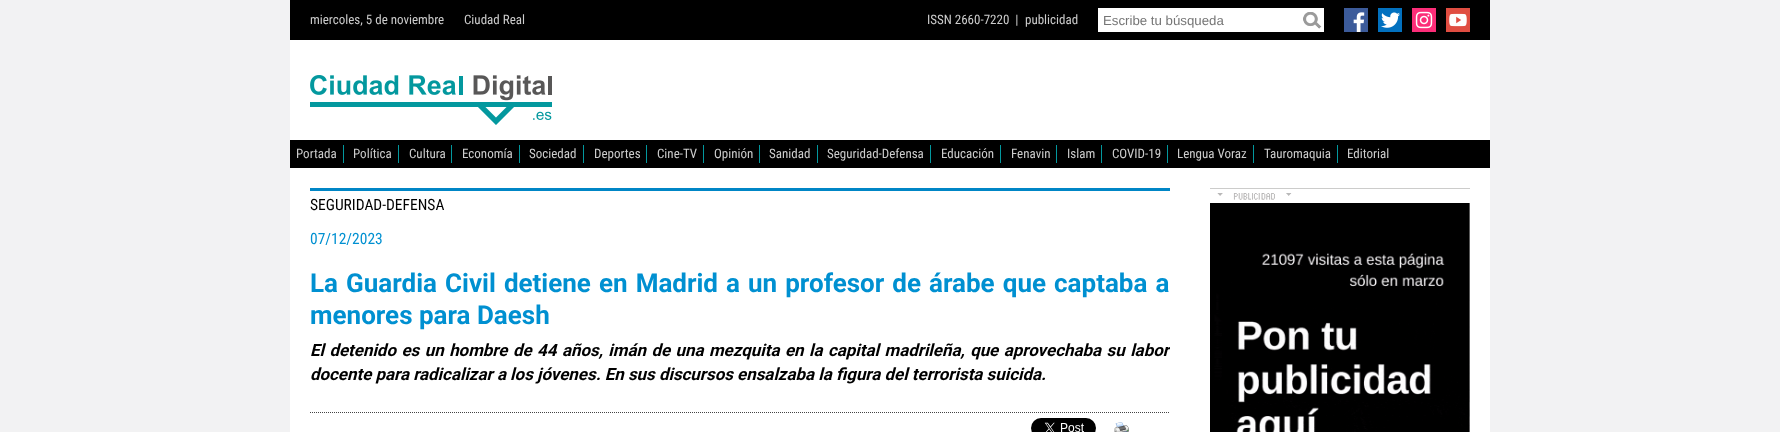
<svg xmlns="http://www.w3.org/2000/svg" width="1780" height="432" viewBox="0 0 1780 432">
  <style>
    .t1 { font: 13px Roboto Condensed; fill: #ccc; }
    .t2 { font: 13.25px Liberation Sans; fill: #757575; }
    .t3 { font: 15.5px Roboto Condensed; fill: #000; }
    .t4 { font: 15.5px Roboto Condensed; fill: #0090d1; }
    .t5 { font: bold 26px Roboto; fill: #0090d1; }
    .t6 { font: italic bold 16.9px Roboto; fill: #000; }
  </style>
  <defs>
    <clipPath id="clip1"><rect x="310" y="188" width="860" height="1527"/></clipPath>
  </defs>
  <rect width="100%" height="100%" fill="#f2f2f3"/>
  <rect x="290" y="0" width="1200" height="40" fill="#000"/>
  <text x="310" y="24" class="t1">miercoles, 5 de noviembre</text>
  <text x="464" y="24" class="t1">Ciudad Real</text>
  <text x="927" y="24" class="t1" xml:space="preserve">ISSN 2660-7220  |</text>
  <text x="1025" y="24" class="t1">publicidad</text>
  <rect x="1098" y="8" width="226" height="24" fill="#fff"/>
  <text x="1103" y="25" class="t2">Escribe tu búsqueda</text>
  <image x="1303" y="12" width="19" height="17" href="images/1.png"/>
  <image x="1344" y="8" width="24" height="24" href="images/2.png"/>
  <image x="1378" y="8" width="24" height="24" href="images/3.png"/>
  <image x="1412" y="8" width="24" height="24" href="images/4.png"/>
  <image x="1446" y="8" width="24" height="24" href="images/5.png"/>
  <rect x="290" y="40" width="1200" height="100" fill="#fff"/>
  <image x="310" y="75" width="242" height="50" href="images/6.png"/>
  <rect x="290" y="140" width="1200" height="28" fill="#000"/>
  <rect x="343" y="145" width="1" height="18" fill="#03989e"/>
  <text x="296" y="158" class="t1">Portada</text>
  <rect x="398" y="145" width="1" height="18" fill="#03989e"/>
  <text x="353" y="158" class="t1">Política</text>
  <rect x="451" y="145" width="1" height="18" fill="#03989e"/>
  <text x="409" y="158" class="t1">Cultura</text>
  <rect x="519" y="145" width="1" height="18" fill="#03989e"/>
  <text x="462" y="158" class="t1">Economía</text>
  <rect x="583" y="145" width="1" height="18" fill="#03989e"/>
  <text x="529" y="158" class="t1">Sociedad</text>
  <rect x="646" y="145" width="1" height="18" fill="#03989e"/>
  <text x="594" y="158" class="t1">Deportes</text>
  <rect x="703" y="145" width="1" height="18" fill="#03989e"/>
  <text x="657" y="158" class="t1">Cine-TV</text>
  <rect x="759" y="145" width="1" height="18" fill="#03989e"/>
  <text x="714" y="158" class="t1">Opinión</text>
  <rect x="817" y="145" width="1" height="18" fill="#03989e"/>
  <text x="769" y="158" class="t1">Sanidad</text>
  <rect x="930" y="145" width="1" height="18" fill="#03989e"/>
  <text x="827" y="158" class="t1">Seguridad-Defensa</text>
  <rect x="1000" y="145" width="1" height="18" fill="#03989e"/>
  <text x="941" y="158" class="t1">Educación</text>
  <rect x="1056" y="145" width="1" height="18" fill="#03989e"/>
  <text x="1011" y="158" class="t1">Fenavin</text>
  <rect x="1101" y="145" width="1" height="18" fill="#03989e"/>
  <text x="1067" y="158" class="t1">Islam</text>
  <rect x="1167" y="145" width="1" height="18" fill="#03989e"/>
  <text x="1112" y="158" class="t1">COVID-19</text>
  <rect x="1253" y="145" width="1" height="18" fill="#03989e"/>
  <text x="1177" y="158" class="t1">Lengua Voraz</text>
  <rect x="1337" y="145" width="1" height="18" fill="#03989e"/>
  <text x="1264" y="158" class="t1">Tauromaquia</text>
  <text x="1347" y="158" class="t1">Editorial</text>
  <rect x="290" y="168" width="1200" height="264" fill="#fff"/>
  <rect x="310" y="188" width="860" height="3" fill="#0086c6"/>
  <text x="310" y="210" class="t3">SEGURIDAD-DEFENSA</text>
  <text x="310" y="244" class="t4">07/12/2023</text>
  <text x="310" y="292" word-spacing="1.6" class="t5">La Guardia Civil detiene en Madrid a un profesor de árabe que captaba a</text>
  <text x="310" y="324" class="t5">menores para Daesh</text>
  <g clip-path="url(#clip1)">
    <text x="310" y="356" word-spacing="1.3" class="t6">El detenido es un hombre de 44 años, imán de una mezquita en la capital madrileña, que aprovechaba su labor</text>
  </g>
  <text x="310" y="380" class="t6">docente para radicalizar a los jóvenes. En sus discursos ensalzaba la figura del terrorista suicida.</text>
  <path d="M310 412.5H1170" fill="none" stroke="#444" stroke-dasharray="1 1"/>
  <image x="1031" y="418" width="65" height="14" href="images/7.png"/>
  <image x="1114" y="422" width="15" height="10" href="images/8.png"/>
  <image x="1217" y="193" width="75" height="7" href="images/9.png"/>
  <rect x="1210" y="188" width="260" height="1" fill="#cccccb"/>
  <image x="1210" y="203" width="260" height="229" href="images/10.png"/>
</svg>
